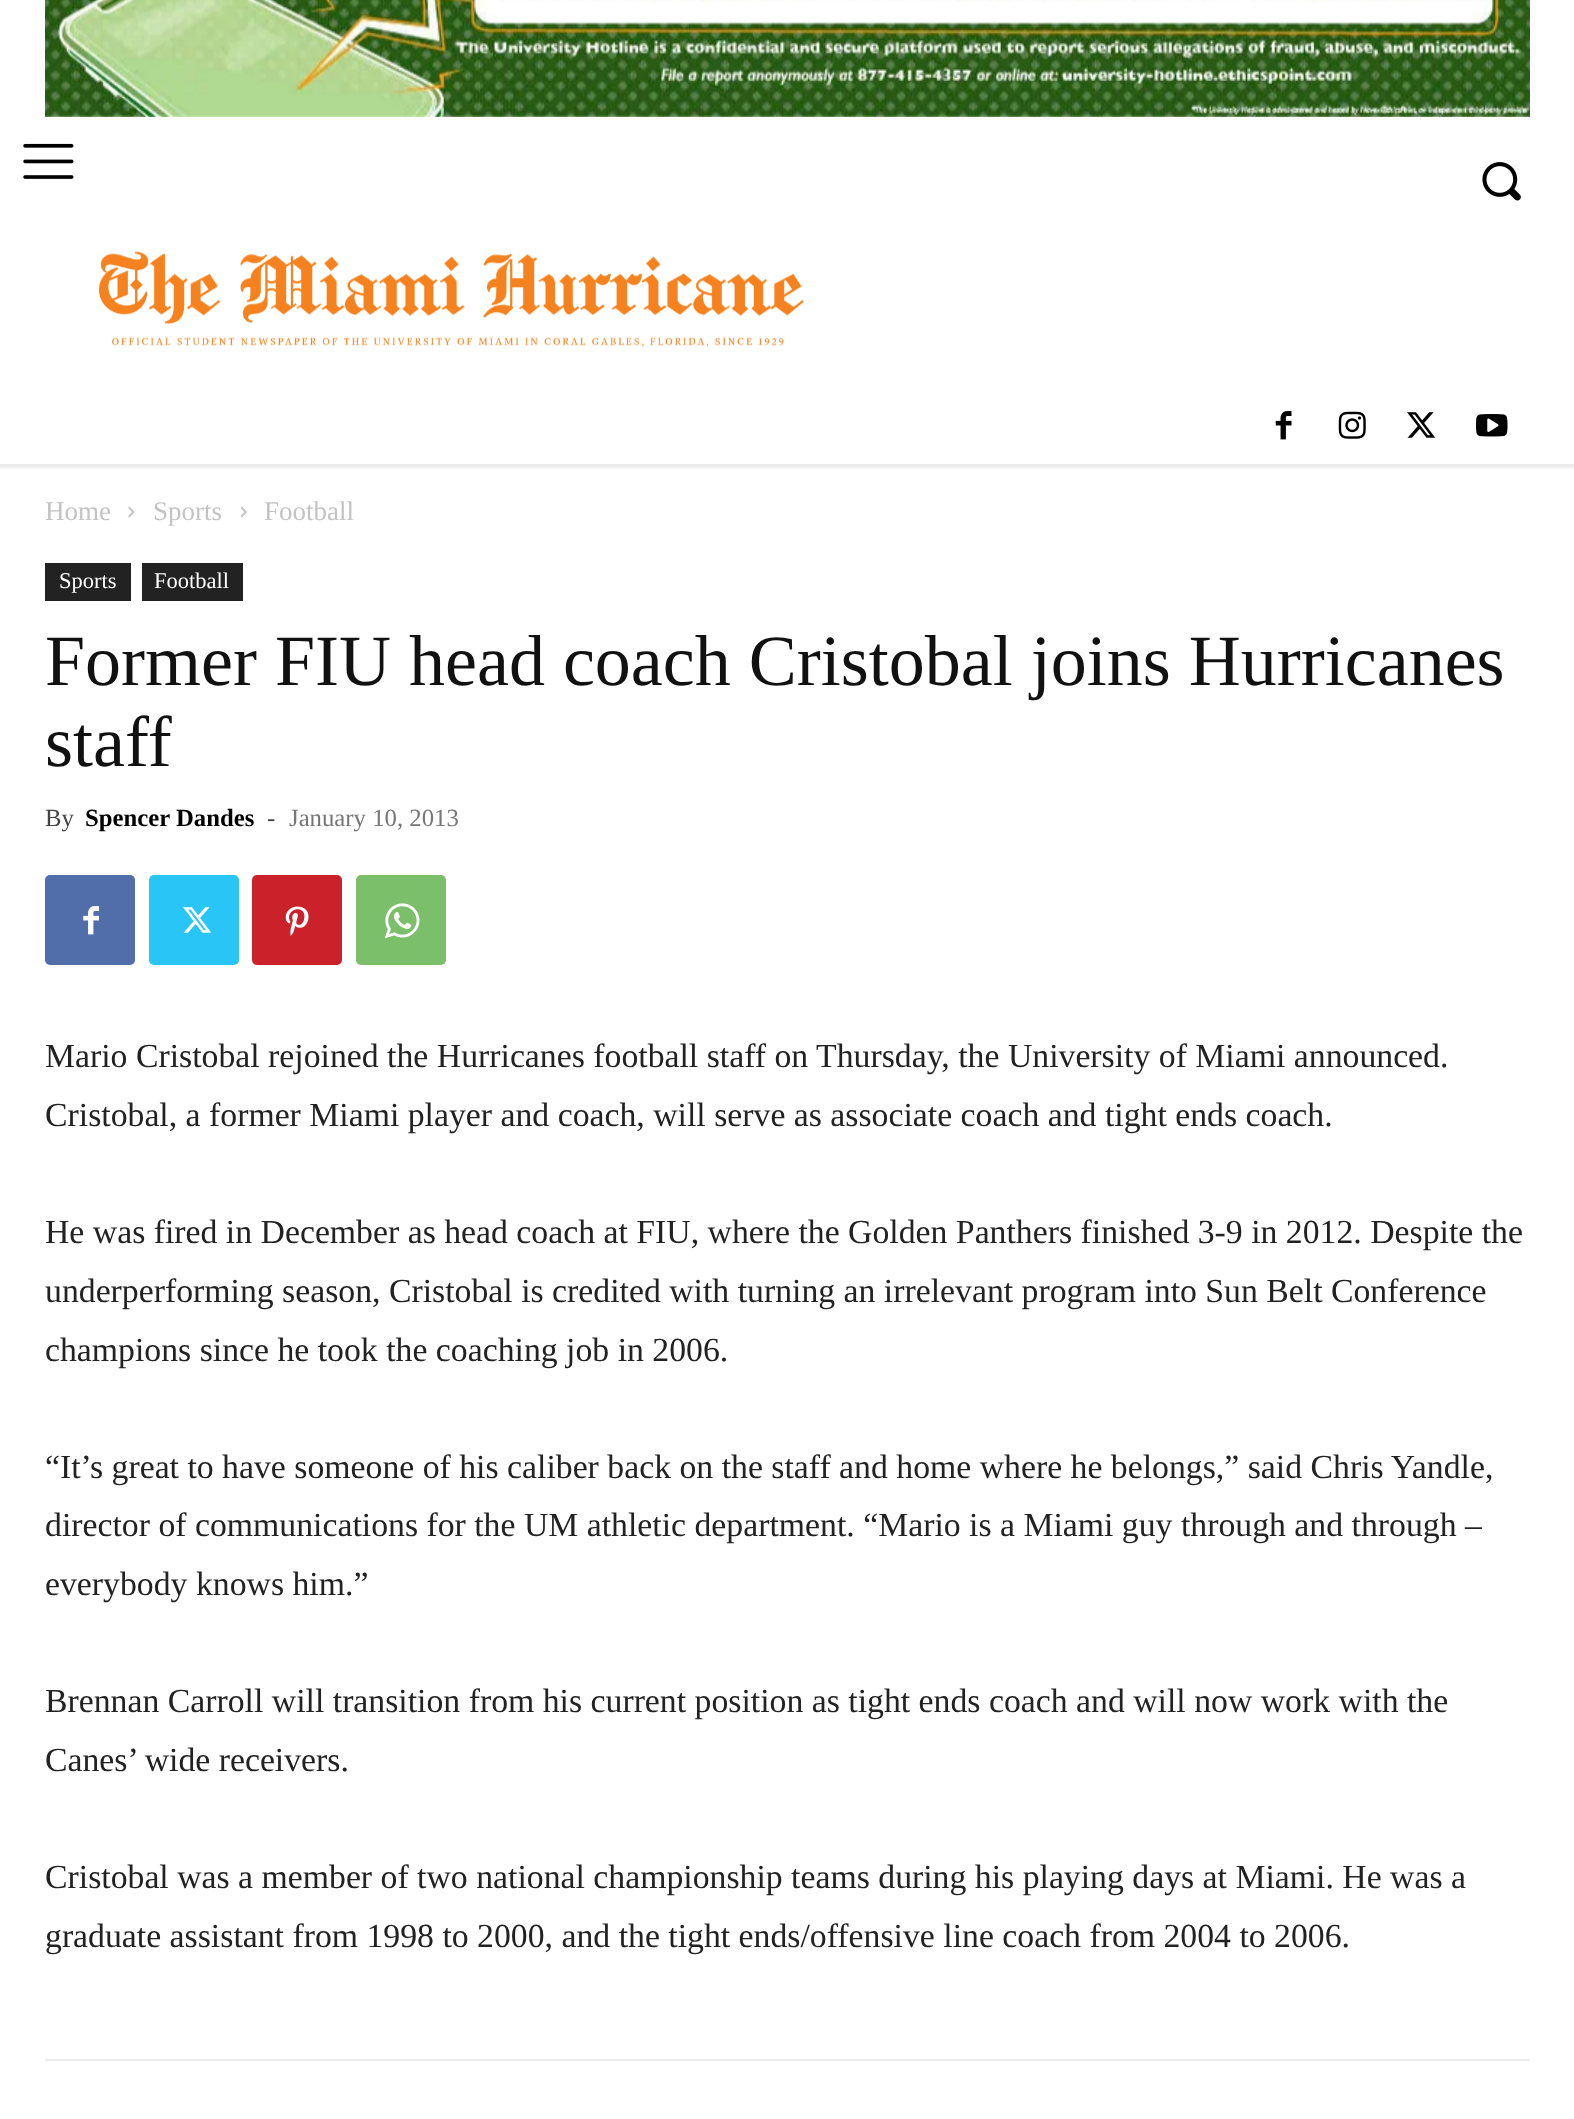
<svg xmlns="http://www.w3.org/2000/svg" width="1574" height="2119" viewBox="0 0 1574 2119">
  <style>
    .t1 { font: 27px Liberation Serif; fill: #c3c3c3; }
    .t2 { font: 22.5px Liberation Serif; fill: #fff; }
    .t3 { font: 72px Liberation Serif; fill: #111; }
    .t4 { font: 24.75px Liberation Serif; fill: #444; }
    .t5 { font: bold 24.75px Liberation Serif; fill: #000; }
    .t6 { font: 24.75px Liberation Serif; fill: #767676; }
    .t7 { font: 33.75px Liberation Serif; fill: #222; }
  </style>
  <defs>
    <clipPath id="clip1"><path d="M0 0H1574V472H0ZM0-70H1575V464H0Z" clip-rule="evenodd"/></clipPath>
  </defs>
  <rect width="100%" height="100%" fill="#fff"/>
  <image x="45" y="0" width="1485" height="117" href="images/1.png"/>
  <image x="23" y="143" width="51" height="36" href="images/2.png"/>
  <image x="1482" y="162" width="39" height="39" href="images/3.png"/>
  <image x="99" y="251" width="705" height="96" href="images/4.png"/>
  <image x="1275" y="411" width="17" height="29" href="images/5.png"/>
  <image x="1338" y="411" width="28" height="28" href="images/6.png"/>
  <image x="1407" y="412" width="29" height="26" href="images/7.png"/>
  <image x="1476" y="414" width="32" height="23" href="images/8.png"/>
  <g clip-path="url(#clip1)">
    <rect x="-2" y="-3" width="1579" height="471" fill="#00000014" filter="blur(1px)"/>
  </g>
  <text x="45" y="520" class="t1">Home</text>
  <image x="128" y="506" width="7" height="12" href="images/9.png"/>
  <text x="153" y="520" class="t1">Sports</text>
  <image x="240" y="506" width="7" height="12" href="images/10.png"/>
  <text x="264" y="520" class="t1">Football</text>
  <rect x="45" y="563" width="86" height="38" fill="#222"/>
  <text x="59" y="588" class="t2">Sports</text>
  <rect x="142" y="563" width="101" height="38" fill="#222"/>
  <text x="154" y="588" class="t2">Football</text>
  <text x="45" y="685" class="t3">Former FIU head coach Cristobal joins Hurricanes</text>
  <text x="45" y="766" class="t3">staff</text>
  <text x="45" y="826" class="t4">By</text>
  <text x="85" y="826" class="t5">Spencer Dandes</text>
  <text x="267" y="826" class="t4">-</text>
  <text x="289" y="826" class="t6">January 10, 2013</text>
  <rect x="45" y="875" width="90" height="90" rx="5" fill="#516eab"/>
  <image x="83" y="906" width="16" height="29" href="images/11.png"/>
  <rect x="149" y="875" width="90" height="90" rx="5" fill="#29c5f6"/>
  <image x="183" y="907" width="29" height="26" href="images/12.png"/>
  <rect x="252" y="875" width="90" height="90" rx="5" fill="#ca212a"/>
  <image x="285" y="906" width="24" height="30" href="images/13.png"/>
  <rect x="356" y="875" width="90" height="90" rx="5" fill="#7bbf6a"/>
  <image x="384" y="903" width="36" height="36" href="images/14.png"/>
  <text x="45" y="1067" class="t7">Mario Cristobal rejoined the Hurricanes football staff on Thursday, the University of Miami announced.</text>
  <text x="45" y="1126" class="t7">Cristobal, a former Miami player and coach, will serve as associate coach and tight ends coach.</text>
  <text x="45" y="1243" class="t7">He was fired in December as head coach at FIU, where the Golden Panthers finished 3-9 in 2012. Despite the</text>
  <text x="45" y="1302" class="t7">underperforming season, Cristobal is credited with turning an irrelevant program into Sun Belt Conference</text>
  <text x="45" y="1361" class="t7">champions since he took the coaching job in 2006.</text>
  <text x="45" y="1478" class="t7">“It’s great to have someone of his caliber back on the staff and home where he belongs,” said Chris Yandle,</text>
  <text x="45" y="1536" class="t7">director of communications for the UM athletic department. “Mario is a Miami guy through and through –</text>
  <text x="45" y="1595" class="t7">everybody knows him.”</text>
  <text x="45" y="1712" class="t7">Brennan Carroll will transition from his current position as tight ends coach and will now work with the</text>
  <text x="45" y="1771" class="t7">Canes’ wide receivers.</text>
  <text x="45" y="1888" class="t7">Cristobal was a member of two national championship teams during his playing days at Miami. He was a</text>
  <text x="45" y="1947" class="t7">graduate assistant from 1998 to 2000, and the tight ends/offensive line coach from 2004 to 2006.</text>
  <rect x="45" y="2059" width="1485" height="2" fill="#ededed"/>
</svg>
